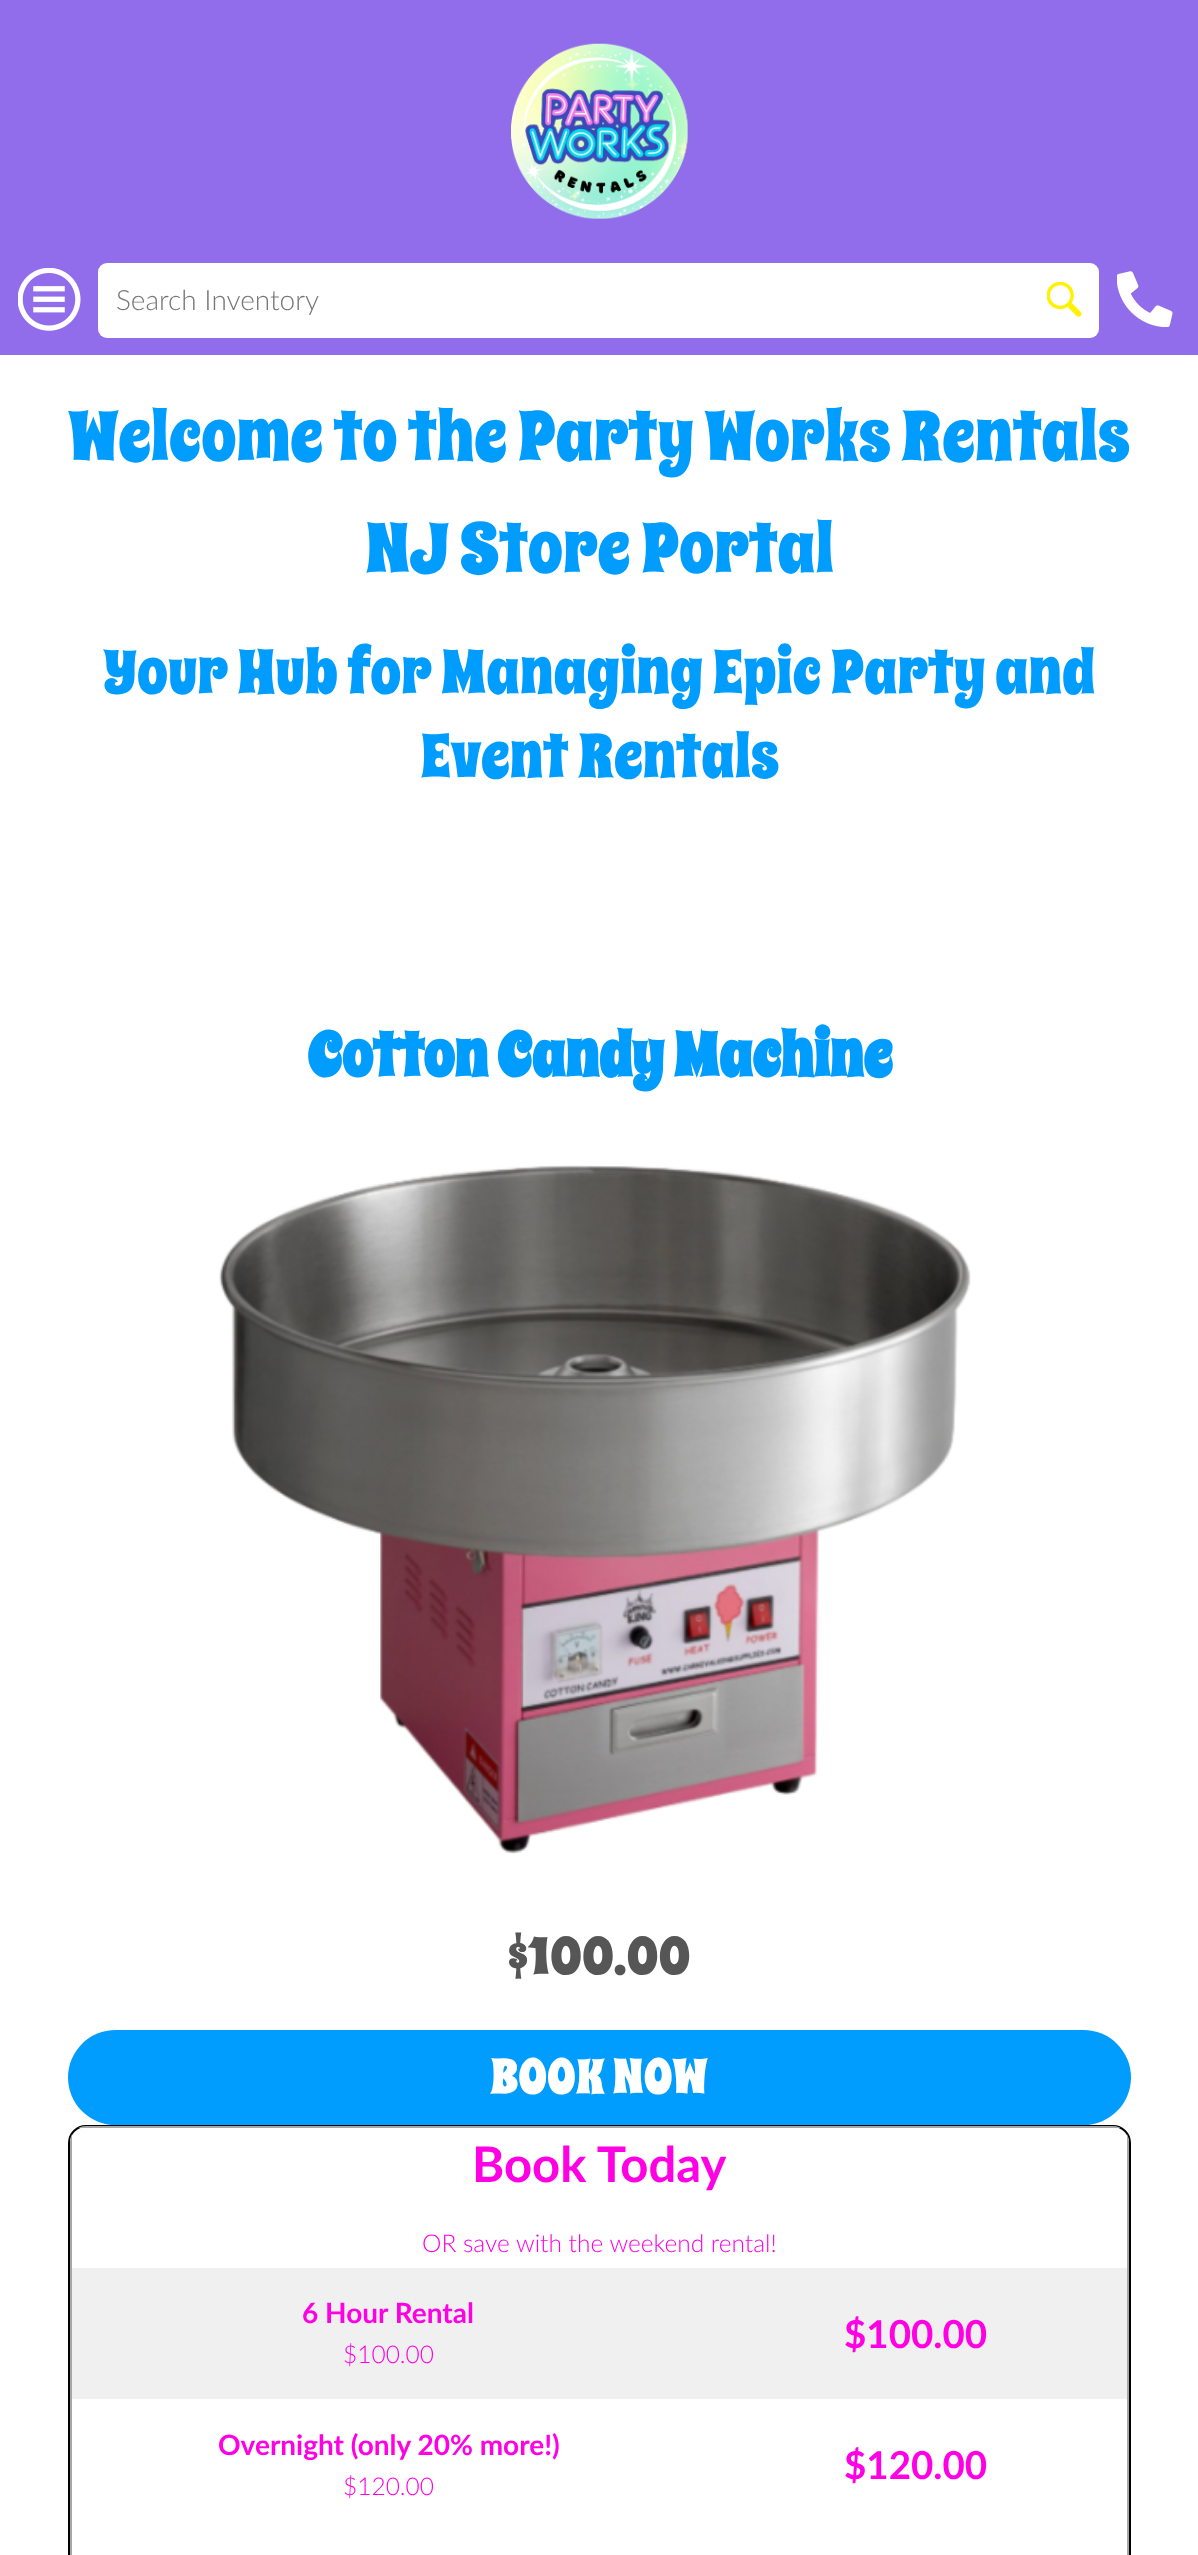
<svg xmlns="http://www.w3.org/2000/svg" width="1198" height="2555" viewBox="0 0 1198 2555">
  <style>
    .t1 { font: 300 28px Lato; fill: #757575; }
    .t2 { font: 70px Spicy Rice; fill: #009dff; }
    .t3 { font: 61.6px Spicy Rice; fill: #009dff; }
    .t4 { font: bold 61.6px Spicy Rice; fill: #009dff; }
    .t5 { font: 52.5px Spicy Rice; fill: #565656; }
    .t6 { font: 49px Spicy Rice; fill: #fff; }
    .t7 { font: bold 49px Lato; fill: #ff00e5; }
    .t8 { font: 300 24.5px Lato; fill: #ff00e5; }
    .t9 { font: bold 28px Lato; fill: #ff00e5; }
    .t10 { font: bold 38.5px Lato; fill: #ff00e5; }
  </style>
  <defs>
    <clipPath id="clip1"><rect x="70" y="2126" width="1059" height="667" rx="16"/></clipPath>
  </defs>
  <rect width="100%" height="100%" fill="#fff"/>
  <rect x="0" y="0" width="1198" height="355" fill="#916ceb"/>
  <image x="511" y="43" width="177" height="176" href="images/1.png"/>
  <image x="18" y="268" width="63" height="63" href="images/2.png"/>
  <rect x="98" y="263" width="1001" height="75" rx="9" fill="#fff"/>
  <text x="116" y="310" class="t1">Search Inventory</text>
  <image x="1047" y="282" width="35" height="35" href="images/3.png"/>
  <image x="1117" y="271" width="56" height="56" href="images/4.png"/>
  <text x="68" y="460" class="t2">Welcome to the Party Works Rentals</text>
  <text x="365" y="572" class="t2">NJ Store Portal</text>
  <text x="103" y="693" class="t3">Your Hub for Managing Epic Party and</text>
  <text x="420" y="777" class="t3">Event Rentals</text>
  <text x="307" y="1076" class="t4">Cotton Candy Machine</text>
  <image x="219" y="1165" width="752" height="689" href="images/5.png"/>
  <text x="508" y="1974" class="t5">$100.00</text>
  <rect x="68" y="2030" width="1063" height="95" rx="47.5" fill="#009dff"/>
  <text x="490" y="2093" class="t6">BOOK NOW</text>
  <rect x="69" y="2126" width="1061" height="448" rx="17" fill="none" stroke="#000" stroke-width="2"/>
  <g clip-path="url(#clip1)">
    <rect x="70" y="2126" width="1059" height="2" fill="#a8a7a7"/>
    <rect x="1127" y="2126" width="2" height="429" fill="#a8a7a7"/>
    <rect x="70" y="2126" width="2" height="429" fill="#a8a7a7"/>
  </g>
  <text x="472" y="2182" class="t7">Book Today</text>
  <text x="422" y="2252" class="t8">OR save with the weekend rental!</text>
  <rect x="72" y="2268" width="1055" height="131" fill="#f0f0f0"/>
  <text x="302" y="2323" class="t9">6 Hour Rental</text>
  <text x="343" y="2363" class="t8">$100.00</text>
  <text x="844" y="2348" class="t10">$100.00</text>
  <text x="218" y="2455" class="t9">Overnight (only 20% more!)</text>
  <text x="343" y="2495" class="t8">$120.00</text>
  <text x="844" y="2479" class="t10">$120.00</text>
</svg>
